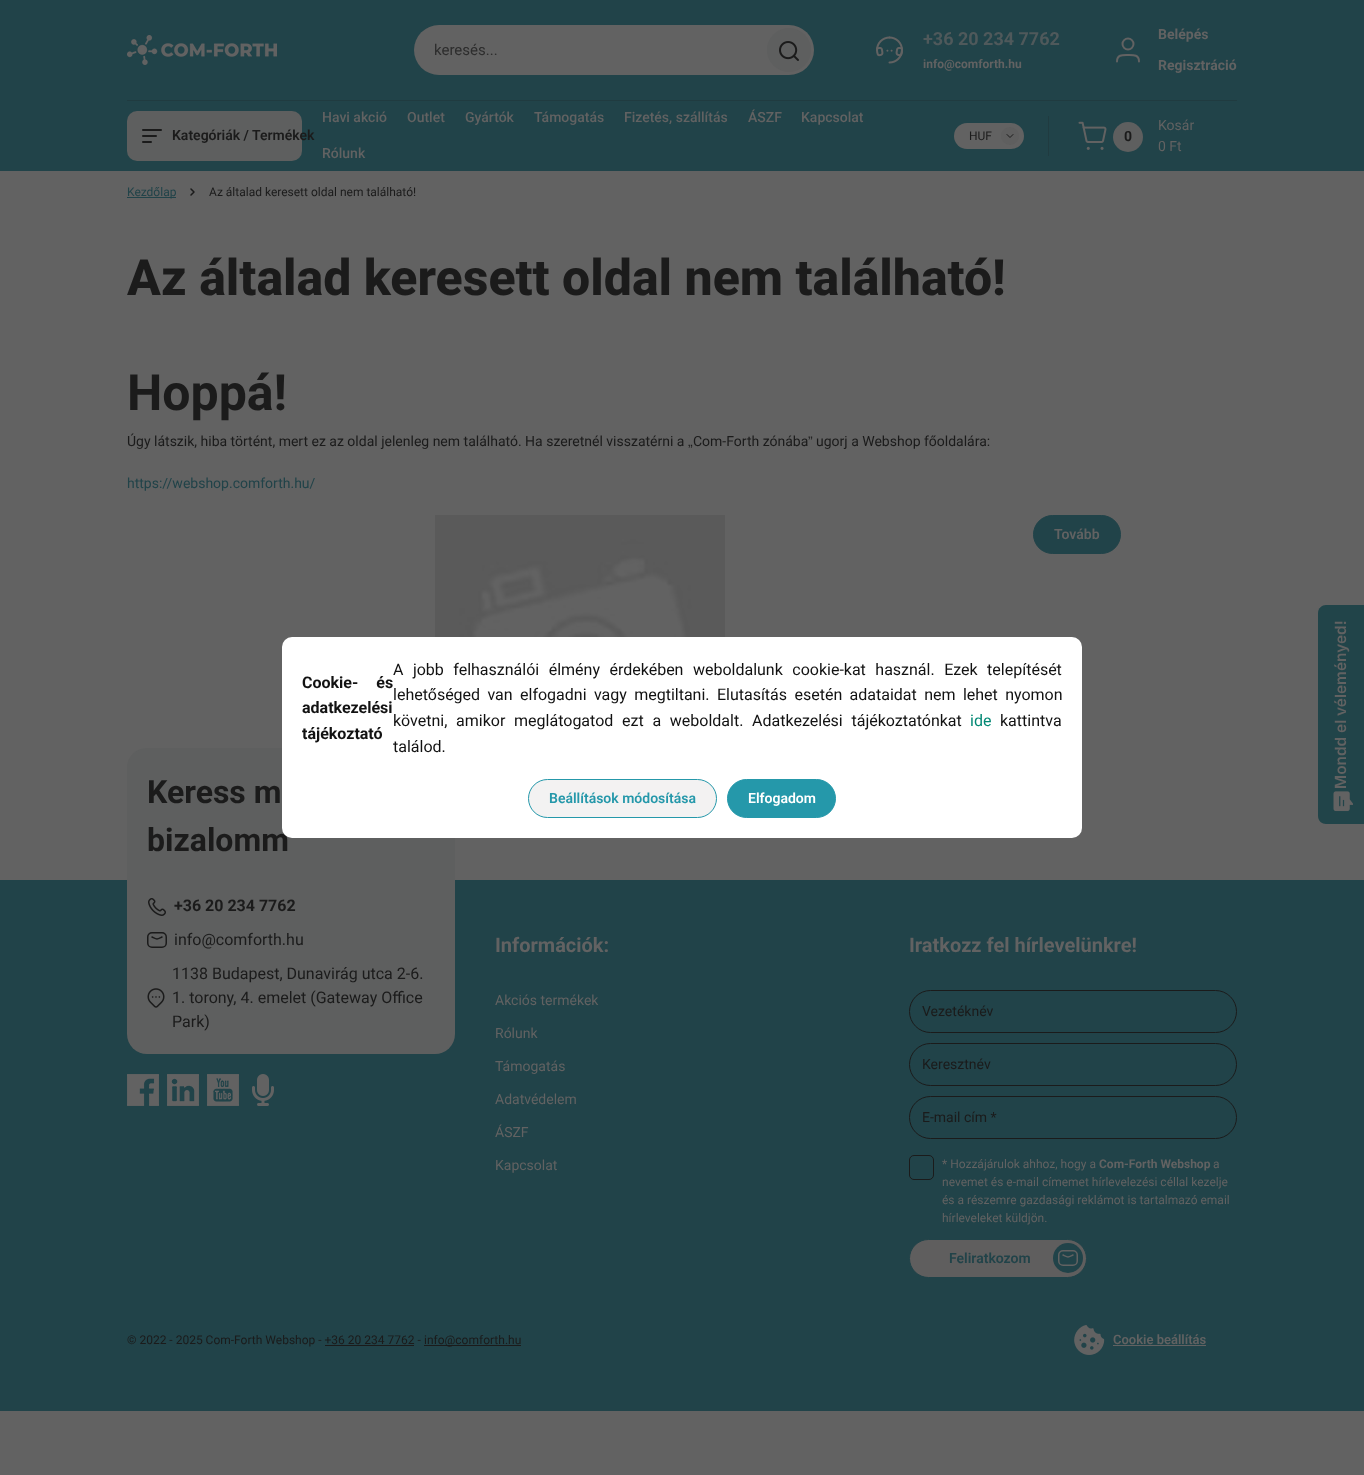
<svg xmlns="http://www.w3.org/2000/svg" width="1364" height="1475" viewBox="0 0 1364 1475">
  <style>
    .t1 { font: 15px Roboto; fill: #2d2d2d; }
    .t2 { font: bold 18px Roboto; fill: #4f595b; }
    .t3 { font: bold 12px Roboto; fill: #626262; }
    .t4 { font: bold 14px Roboto; fill: #626262; }
    .t5 { font: 600 14px Roboto; fill: #1b1b1b; }
    .t6 { font: 500 14px Roboto; fill: #626262; }
    .t7 { font: 12px Roboto; fill: #1b1b1b; }
    .t8 { font: bold 14px Roboto; fill: #1b1b1b; }
    .t9 { font: 14px Roboto; fill: #626262; }
    .t10 { font: 12px Roboto; fill: #214349; }
    .t11 { font: 800 50px Roboto; fill: #1b1b1b; }
    .t12 { font: bold 50px Roboto; fill: #1b1b1b; }
    .t13 { font: 14px Roboto; fill: #1b1b1b; }
    .t14 { font: 14px Liberation Sans; fill: #1b1b1b; }
    .t15 { font: 14px Roboto; fill: #214349; }
    .t16 { font: 600 14px Roboto; fill: #626262; }
    .t17 { font: bold 32px Roboto; fill: #1b1b1b; }
    .t18 { font: bold 16px Roboto; fill: #1b1b1b; }
    .t19 { font: 16px Roboto; fill: #1b1b1b; }
    .t20 { font: bold 20px Roboto; fill: #626262; }
    .t21 { font: 12px Roboto; fill: #626262; }
    .t22 { font: 600 14px Roboto; fill: #214349; }
    .t23 { font: 600 13px Roboto; fill: #626262; }
    .t24 { font: 600 15.4px Inter; fill: #626262; }
    .t25 { font: bold 16px Roboto; fill: #121212; }
    .t26 { font: 16px Roboto; fill: #121212; }
    .t27 { font: 16px Roboto; fill: #038874; }
    .t28 { font: 600 14px Roboto; fill: #2598aa; }
    .t29 { font: 600 14px Roboto; fill: #fff; }
  </style>
  <rect width="100%" height="100%" fill="#626262"/>
  <rect x="0" y="0" width="1364" height="171" fill="#214349"/>
  <image x="127" y="35" width="150" height="30" href="images/1.png"/>
  <rect x="414" y="25" width="400" height="50" rx="25" fill="#626262"/>
  <text x="434" y="55" class="t1">keresés...</text>
  <circle cx="789" cy="50" r="22" fill="#5e5f5f"/>
  <image x="779" y="41" width="20" height="20" href="images/2.png"/>
  <image x="876" y="36" width="27" height="28" href="images/3.png"/>
  <text x="923" y="45" class="t2">+36 20 234 7762</text>
  <text x="923" y="68" class="t3">info@comforth.hu</text>
  <circle cx="1128" cy="44" r="5.5" fill="none" stroke="#626262" stroke-width="2"/>
  <path d="M1139 61.5C1139 54.5 1133.5 55 1128 55C1122.5 55 1117 54.5 1117 61.5" fill="none" stroke="#626262" stroke-width="2" stroke-linecap="round" stroke-linejoin="round"/>
  <text x="1158" y="39" class="t4">Belépés</text>
  <text x="1158" y="70" class="t4">Regisztráció</text>
  <rect x="127" y="100" width="1110" height="1" fill="#203b40"/>
  <rect x="127" y="111" width="175" height="50" rx="10" fill="#5e5f5f"/>
  <image x="142" y="129" width="20" height="14" href="images/4.png"/>
  <text x="172" y="140" class="t5">Kategóriák / Termékek</text>
  <text x="322" y="122" class="t6">Havi akció</text>
  <text x="407" y="122" class="t6">Outlet</text>
  <text x="465" y="122" class="t6">Gyártók</text>
  <text x="534" y="122" class="t6">Támogatás</text>
  <text x="624" y="122" class="t6">Fizetés, szállítás</text>
  <text x="748" y="122" class="t6">ÁSZF</text>
  <text x="801" y="122" class="t6">Kapcsolat</text>
  <text x="322" y="158" class="t6">Rólunk</text>
  <rect x="954" y="123" width="70" height="26" rx="13" fill="#626262"/>
  <circle cx="1010" cy="136" r="9" fill="#5f5f5f"/>
  <path d="M1007 134.5L1010 137.5L1013 134.5" fill="none" stroke="#1b1b1b" stroke-linecap="round" stroke-linejoin="round"/>
  <text x="969" y="140" class="t7">HUF</text>
  <rect x="1048" y="116" width="1" height="40" fill="#203b40"/>
  <image x="1078" y="121" width="29" height="29" href="images/5.png"/>
  <circle cx="1128" cy="137" r="15" fill="#5e5f5f"/>
  <text x="1124" y="141" class="t8">0</text>
  <text x="1158" y="130" class="t9">Kosár</text>
  <text x="1158" y="151" class="t9">0 Ft</text>
  <rect x="127" y="197" width="49" height="1" fill="#214349"/>
  <text x="127" y="196" class="t10">Kezdőlap</text>
  <path d="M191 195L194 192L191 189" fill="none" stroke="#1b1b1b" stroke-width="1.5" stroke-linecap="round" stroke-linejoin="round"/>
  <text x="209" y="196" class="t7">Az általad keresett oldal nem található!</text>
  <text x="127" y="295" class="t11">Az általad keresett oldal nem található!</text>
  <text x="127" y="410" class="t12">Hoppá!</text>
  <text x="127" y="446" class="t13">Úgy látszik, hiba történt, mert ez az oldal jelenleg nem található. Ha szeretnél visszatérni a</text>
  <text x="693" y="446" class="t13">Com-Forth zónába</text>
  <text x="808" y="446" class="t14">”</text>
  <text x="816" y="446" class="t13">ugorj a Webshop főoldalára:</text>
  <text x="688" y="446" class="t14">„</text>
  <text x="127" y="488" class="t15">https://webshop.comforth.hu/</text>
  <image x="435" y="515" width="290" height="122" href="images/6.png"/>
  <rect x="1033.5" y="515.5" width="87" height="38" rx="19" fill="#214349" stroke="#214349"/>
  <text x="1054" y="539" class="t16">Tovább</text>
  <rect x="0" y="880" width="1364" height="531" fill="#214349"/>
  <rect x="127" y="748" width="328" height="306" rx="20" fill="#5e5f5f"/>
  <text x="147" y="803" class="t17">Keress m</text>
  <text x="147" y="851" class="t17">bizalomm</text>
  <image x="148" y="898" width="18" height="18" href="images/7.png"/>
  <text x="174" y="911" class="t18">+36 20 234 7762</text>
  <rect x="147.75" y="932.75" width="18.5" height="14.5" rx="4.25" fill="none" stroke="#1b1b1b" stroke-width="1.5"/>
  <path d="M152 937C157.5 939.5 156.5 939.5 162 937" fill="none" stroke="#1b1b1b" stroke-width="1.5" stroke-linecap="round" stroke-linejoin="round"/>
  <text x="174" y="945" class="t19">info@comforth.hu</text>
  <image x="147" y="988" width="18" height="20" href="images/8.png"/>
  <text x="172" y="979" class="t19">1138 Budapest, Dunavirág utca 2-6.</text>
  <text x="172" y="1003" class="t19">1. torony, 4. emelet (Gateway Office</text>
  <text x="172" y="1027" class="t19">Park)</text>
  <image x="127" y="1074" width="32" height="32" href="images/9.png"/>
  <image x="167" y="1074" width="32" height="32" href="images/10.png"/>
  <image x="207" y="1074" width="32" height="32" href="images/11.png"/>
  <image x="252" y="1074" width="22" height="32" href="images/12.png"/>
  <text x="495" y="952" class="t20">Információk:</text>
  <text x="495" y="1005" class="t9">Akciós termékek</text>
  <text x="495" y="1038" class="t9">Rólunk</text>
  <text x="495" y="1071" class="t9">Támogatás</text>
  <text x="495" y="1104" class="t9">Adatvédelem</text>
  <text x="495" y="1137" class="t9">ÁSZF</text>
  <text x="495" y="1170" class="t9">Kapcsolat</text>
  <text x="909" y="952" class="t20">Iratkozz fel hírlevelünkre!</text>
  <rect x="909.5" y="990.5" width="327" height="42" rx="21" fill="none" stroke="#1b1b1b"/>
  <text x="922" y="1016" class="t13">Vezetéknév</text>
  <rect x="909.5" y="1043.5" width="327" height="42" rx="21" fill="none" stroke="#1b1b1b"/>
  <text x="922" y="1069" class="t13">Keresztnév</text>
  <rect x="909.5" y="1096.5" width="327" height="42" rx="21" fill="none" stroke="#1b1b1b"/>
  <text x="922" y="1122" class="t13">E-mail cím *</text>
  <rect x="909.5" y="1155.5" width="24" height="24" rx="4.5" fill="none" stroke="#1b1b1b"/>
  <text x="942" y="1168" class="t21">* Hozzájárulok ahhoz, hogy a</text>
  <text x="1099" y="1168" class="t3">Com-Forth Webshop</text>
  <text x="1213" y="1168" class="t21">a</text>
  <text x="942" y="1186" class="t21">nevemet és e-mail címemet hírlevelezési céllal kezelje</text>
  <text x="942" y="1204" class="t21">és a részemre gazdasági reklámot is tartalmazó email</text>
  <text x="942" y="1222" class="t21">hírleveleket küldjön.</text>
  <rect x="909.5" y="1239.5" width="177" height="38" rx="19" fill="#5f5e5e" stroke="#214349"/>
  <text x="949" y="1263" class="t22">Feliratkozom</text>
  <circle cx="1068" cy="1258" r="15" fill="#214349"/>
  <rect x="1058.75" y="1250.75" width="18.5" height="14.5" rx="4.25" fill="none" stroke="#626262" stroke-width="1.5"/>
  <path d="M1063 1255C1068.5 1257.5 1067.5 1257.5 1073 1255" fill="none" stroke="#626262" stroke-width="1.5" stroke-linecap="round" stroke-linejoin="round"/>
  <text x="127" y="1344" class="t7">© 2022 - 2025 Com-Forth Webshop - +36 20 234 7762 -</text>
  <rect x="424" y="1345" width="97" height="1" fill="#1b1b1b"/>
  <text x="424" y="1344" class="t7">info@comforth.hu</text>
  <rect x="325" y="1345" width="89" height="1" fill="#1b1b1b"/>
  <image x="1074" y="1325" width="31" height="30" href="images/13.png"/>
  <text x="1113" y="1344" class="t23">Cookie beállítás</text>
  <rect x="1113" y="1345" width="93" height="1" fill="#626262"/>
  <path d="M1318 816V613C1318 608 1322 605 1326 605H1364V824H1326C1322 824 1318 821 1318 816Z" fill="#214449"/>
  <text x="1346" y="789" transform="rotate(-90 1346 789)" class="t24">Mondd el véleményed!</text>
  <image x="1333" y="791" width="20" height="21" href="images/14.png"/>
  <rect x="282" y="637" width="800" height="201" rx="10" fill="#fff"/>
  <text x="302" y="688" word-spacing="14" class="t25">Cookie- és</text>
  <text x="302" y="713" class="t25">adatkezelési</text>
  <text x="302" y="739" class="t25">tájékoztató</text>
  <text x="393" y="675" word-spacing="5.5" class="t26">A jobb felhasználói élmény érdekében weboldalunk cookie-kat használ. Ezek telepítését</text>
  <text x="393" y="700" word-spacing="3.4" class="t26">lehetőséged van elfogadni vagy megtiltani. Elutasítás esetén adataidat nem lehet nyomon</text>
  <text x="393" y="726" word-spacing="4.75" class="t26">követni, amikor meglátogatod ezt a weboldalt. Adatkezelési tájékoztatónkat</text>
  <text x="970" y="726" class="t27">ide</text>
  <text x="1000" y="726" class="t26">kattintva</text>
  <text x="393" y="752" class="t26">találod.</text>
  <rect x="528.5" y="779.5" width="188" height="38" rx="19" fill="#f3f2f2" stroke="#2598aa"/>
  <text x="549" y="803" class="t28">Beállítások módosítása</text>
  <rect x="727.5" y="779.5" width="108" height="38" rx="19" fill="#2598aa" stroke="#2598aa"/>
  <text x="748" y="803" class="t29">Elfogadom</text>
</svg>
